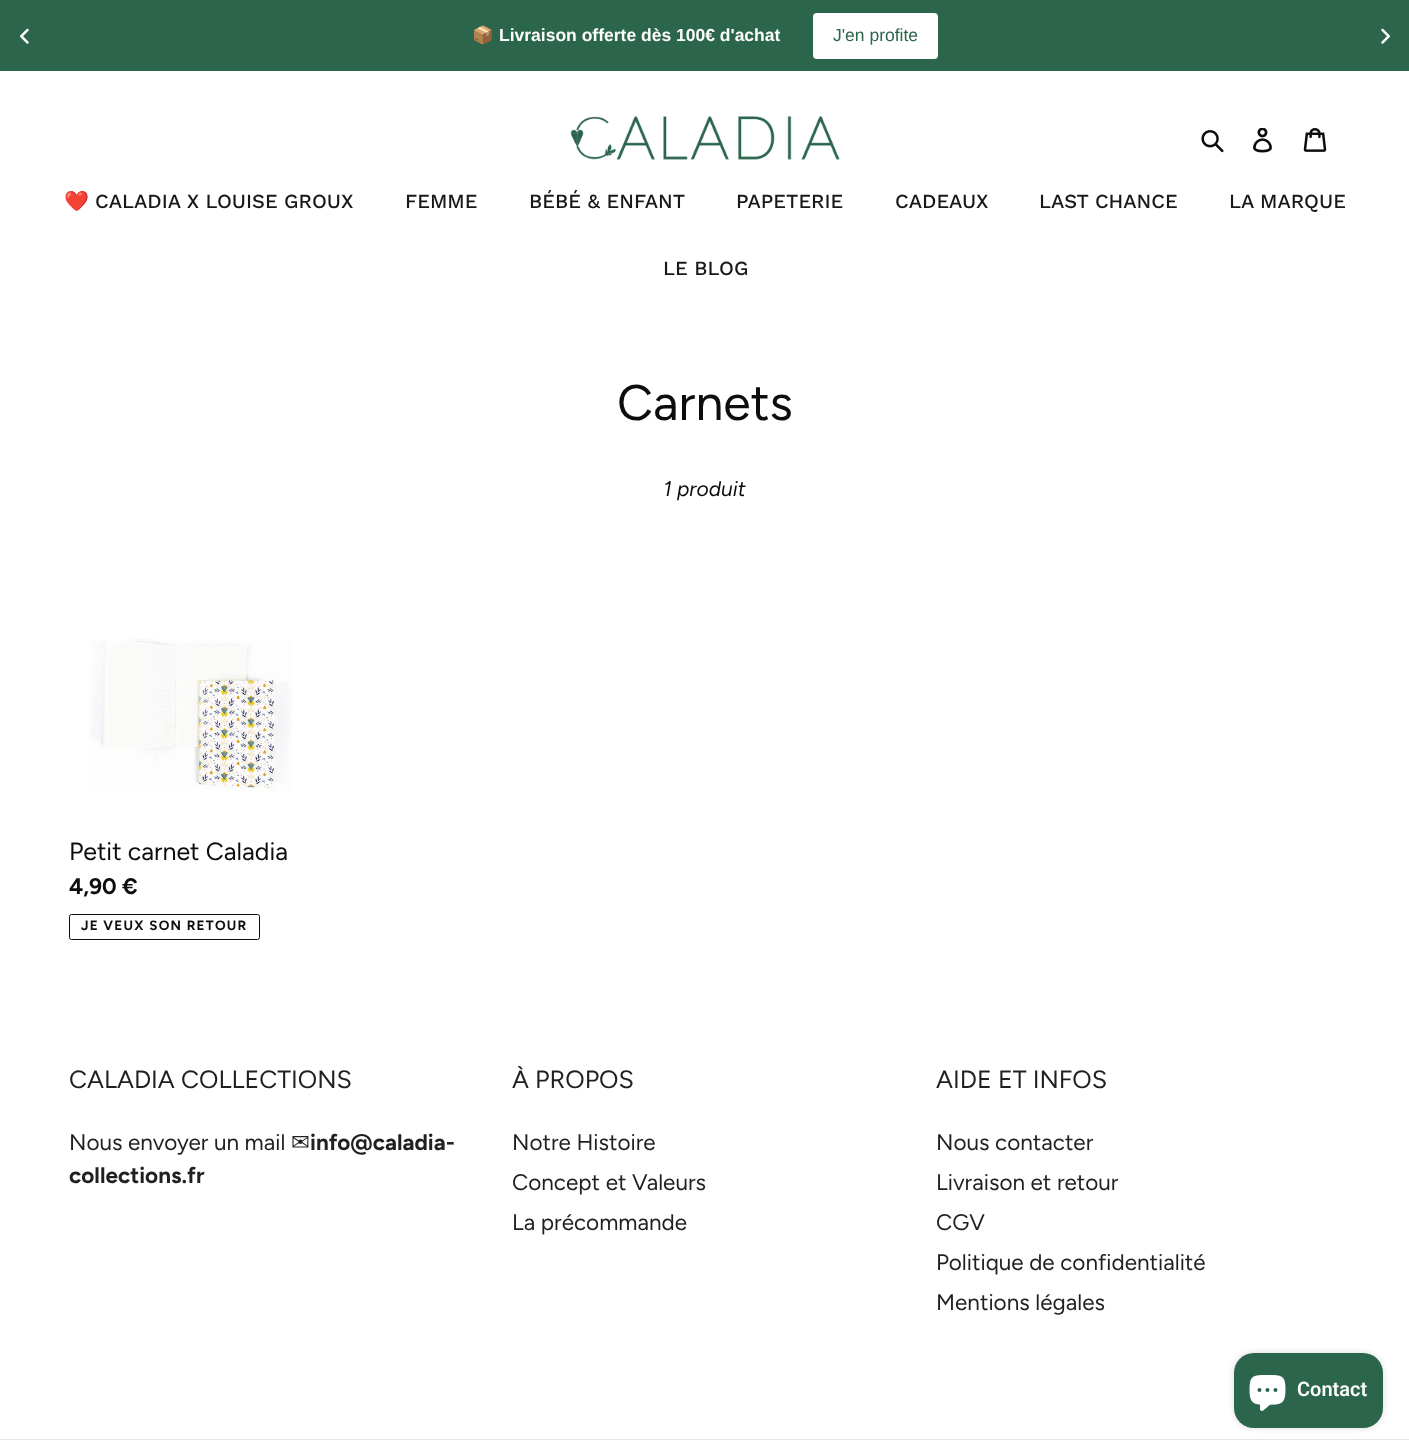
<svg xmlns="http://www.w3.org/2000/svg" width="1409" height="1453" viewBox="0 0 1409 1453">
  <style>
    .t1 { font: bold 17.5px Noto Color Emoji; fill: #fdfcfc; }
    .t2 { font: bold 17.5px Liberation Sans; fill: #fdfcfc; }
    .t3 { font: 17.5px Liberation Sans; fill: #2a654c; }
    .t4 { font: 20px Noto Color Emoji; fill: #171818; }
    .t5 { font: 500 20px Work Sans; fill: #171818; }
    .t6 { font: 50px Figtree; fill: #0d0d0d; }
    .t7 { font: italic 21px Figtree; fill: #0d0d0d; }
    .t8 { font: 25px Figtree; fill: #0d0d0d; }
    .t9 { font: bold 22.5px Figtree; fill: #0d0d0d; }
    .t10 { font: bold 13.5px Figtree; letter-spacing: 1.25px; fill: #0d0d0d; }
    .t11 { font: 25px Figtree; fill: #1f2120; }
    .t12 { font: 22.5px Figtree; fill: #1f2120; }
    .t13 { font: 22.5px DejaVu Sans; fill: #1f2120; }
    .t14 { font: bold 22.5px Figtree; fill: #1f2120; }
    .t15 { font: 600 20px Roboto; fill: #fdfcfc; }
  </style>
  <rect width="100%" height="100%" fill="#fff"/>
  <rect x="0" y="0" width="1409" height="71" fill="#2a654c"/>
  <text x="472" y="41" class="t1">📦</text>
  <text x="499" y="41" class="t2">Livraison offerte dès 100€ d'achat</text>
  <rect x="813" y="13" width="125" height="46" rx="4" fill="#fff"/>
  <text x="833" y="41" class="t3">J'en profite</text>
  <image x="20" y="28" width="9" height="16" href="images/1.png"/>
  <image x="1381" y="28" width="9" height="16" href="images/2.png"/>
  <image x="570" y="116" width="270" height="44" href="images/3.png"/>
  <image x="1201" y="130" width="23" height="23" href="images/4.png"/>
  <image x="1253" y="128" width="19" height="25" href="images/5.png"/>
  <image x="1303" y="128" width="24" height="24" href="images/6.png"/>
  <text x="64" y="208" class="t4">❤️</text>
  <text x="95" y="208" class="t5">CALADIA X LOUISE GROUX</text>
  <text x="405" y="208" class="t5">FEMME</text>
  <text x="529" y="208" class="t5">BÉBÉ &amp; ENFANT</text>
  <text x="736" y="208" class="t5">PAPETERIE</text>
  <text x="895" y="208" class="t5">CADEAUX</text>
  <text x="1039" y="208" class="t5">LAST CHANCE</text>
  <text x="1229" y="208" class="t5">LA MARQUE</text>
  <text x="663" y="275" class="t5">LE BLOG</text>
  <text x="617" y="420" class="t6">Carnets</text>
  <text x="663" y="496" class="t7">1 produit</text>
  <image x="89" y="639" width="203" height="152" href="images/7.png"/>
  <text x="69" y="860" class="t8">Petit carnet Caladia</text>
  <text x="69" y="894" class="t9">4,90 €</text>
  <rect x="69.5" y="914.5" width="190" height="25" rx="2" fill="none" stroke="#0d0d0d"/>
  <text x="81" y="930" class="t10">JE VEUX SON RETOUR</text>
  <text x="69" y="1088" class="t11">CALADIA COLLECTIONS</text>
  <text x="69" y="1150" class="t12">Nous envoyer un mail</text>
  <text x="291" y="1150" class="t13">✉</text>
  <text x="310" y="1150" class="t14">info@caladia-</text>
  <text x="69" y="1183" class="t14">collections.fr</text>
  <text x="512" y="1088" class="t11">À PROPOS</text>
  <text x="512" y="1150" class="t12">Notre Histoire</text>
  <text x="512" y="1190" class="t12">Concept et Valeurs</text>
  <text x="512" y="1230" class="t12">La précommande</text>
  <text x="936" y="1088" class="t11">AIDE ET INFOS</text>
  <text x="936" y="1150" class="t12">Nous contacter</text>
  <text x="936" y="1190" class="t12">Livraison et retour</text>
  <text x="936" y="1230" class="t12">CGV</text>
  <text x="936" y="1270" class="t12">Politique de confidentialité</text>
  <text x="936" y="1310" class="t12">Mentions légales</text>
  <rect x="0" y="1439" width="1409" height="1" fill="#e6e6e6"/>
  <rect x="1234" y="1353" width="149" height="75" rx="20" fill="#00000026" filter="blur(3px)"/>
  <rect x="1234" y="1353" width="149" height="75" rx="20" fill="#2a654c"/>
  <image x="1249" y="1375" width="37" height="36" href="images/8.png"/>
  <text x="1297" y="1396" class="t15">Contact</text>
</svg>
